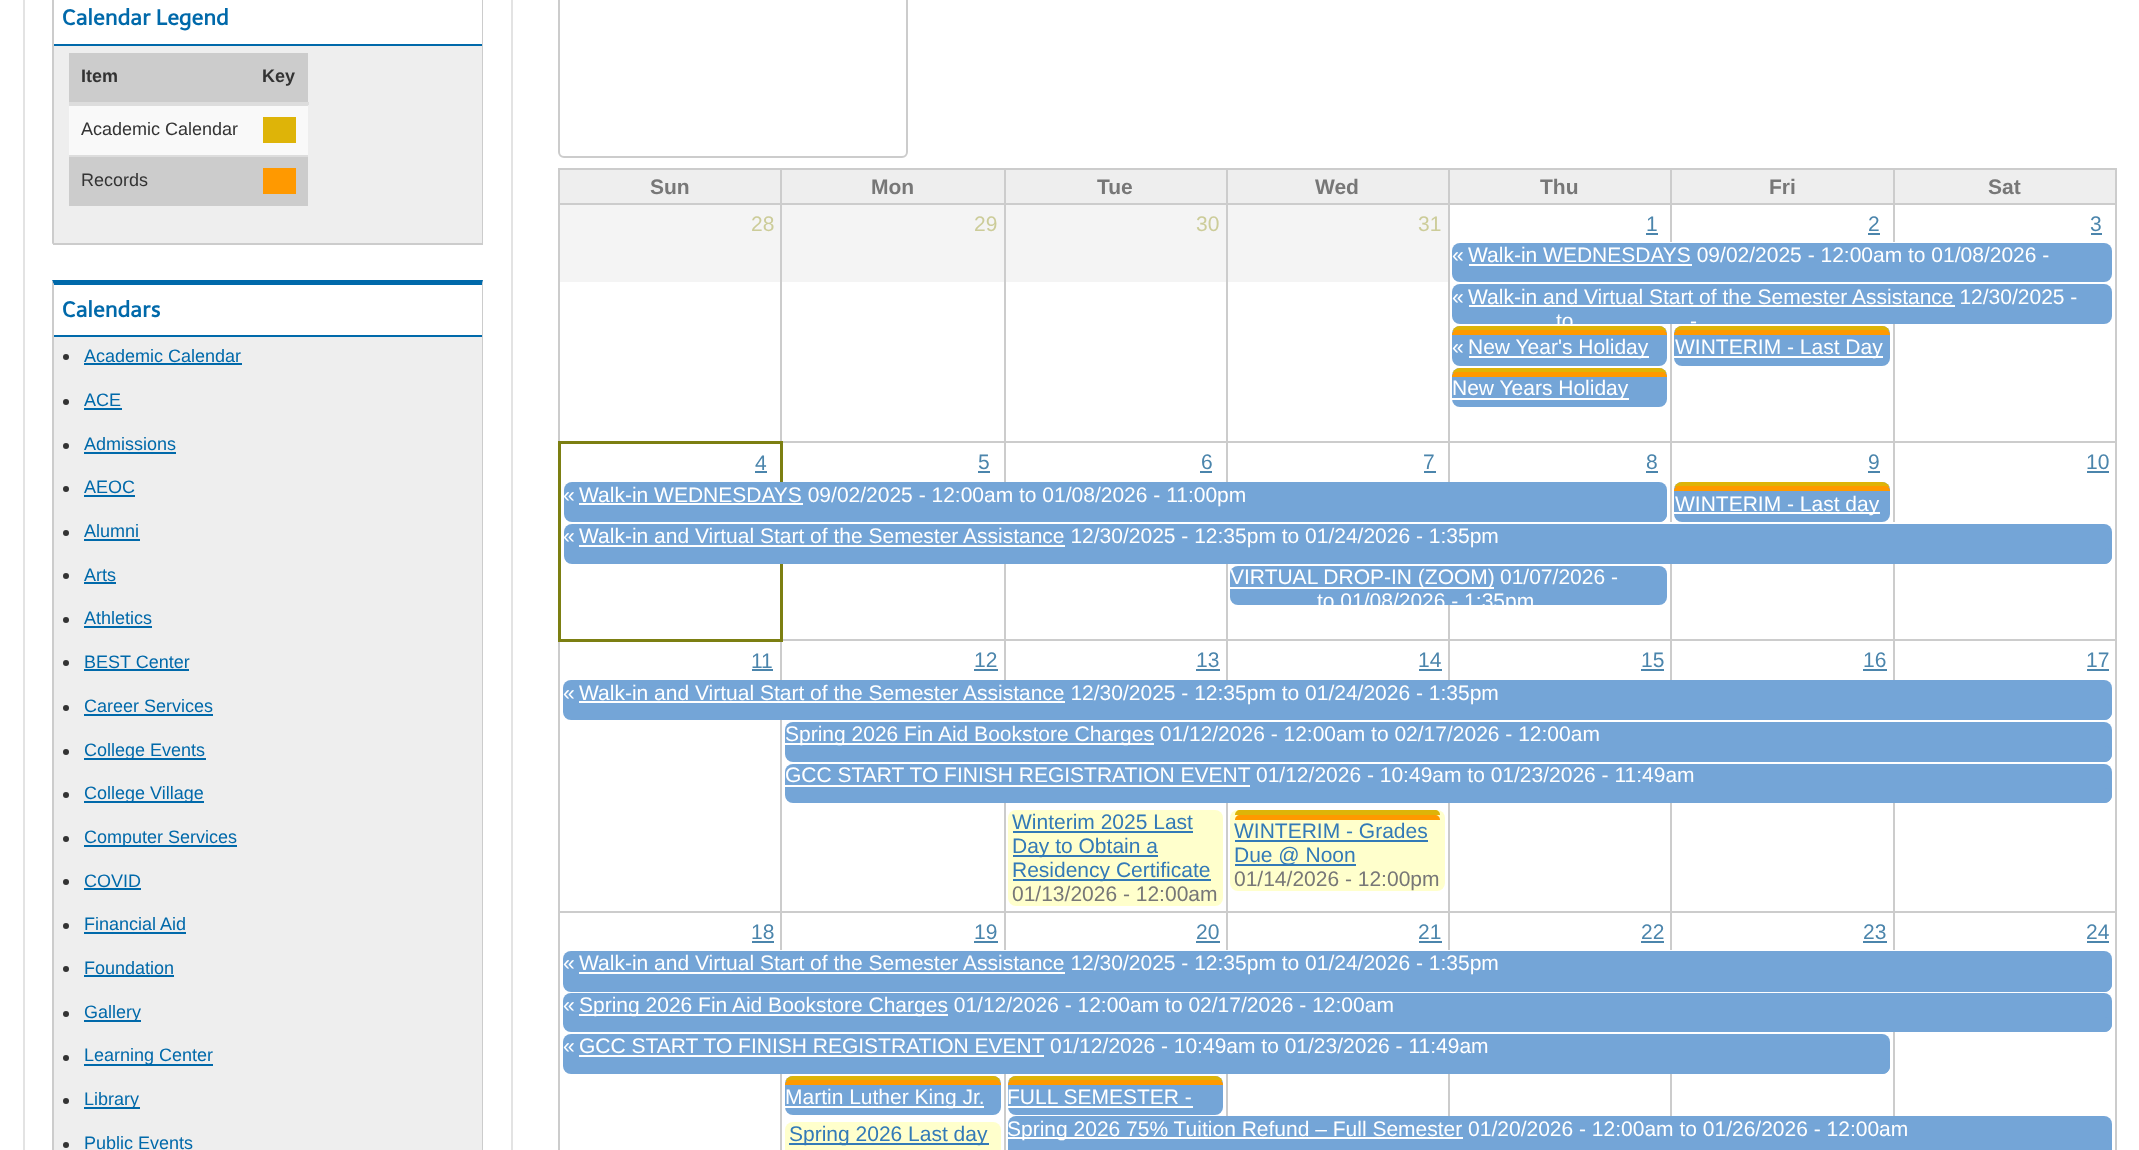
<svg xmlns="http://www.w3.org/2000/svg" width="2139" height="1150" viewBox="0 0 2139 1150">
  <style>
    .t1 { font: bold 21.5px Telex; fill: #0069aa; }
    .t2 { font: bold 18px Liberation Sans; fill: #333; }
    .t3 { font: 18px Liberation Sans; fill: #333; }
    .t4 { font: 18px Liberation Sans; fill: #0069aa; }
    .t5 { font: bold 21px Liberation Sans; fill: #777; }
    .t6 { font: 21px Liberation Sans; fill: #cc9; }
    .t7 { font: 21px Liberation Sans; fill: #4b85ac; }
    .t8 { font: 21px Liberation Sans; fill: #fff; }
    .t9 { font: 21px Liberation Sans; fill: #337ab7; }
    .t10 { font: 21px Liberation Sans; fill: #777; }
  </style>
  <defs>
    <clipPath id="clip1"><rect x="1452" y="284" width="660" height="40" rx="8"/></clipPath>
    <clipPath id="clip2"><rect x="1452" y="326" width="215" height="40" rx="8"/></clipPath>
    <clipPath id="clip3"><rect x="1674" y="326" width="216" height="40" rx="8"/></clipPath>
    <clipPath id="clip4"><rect x="1452" y="368" width="215" height="39" rx="8"/></clipPath>
    <clipPath id="clip5"><rect x="1674" y="482" width="216" height="40" rx="8"/></clipPath>
    <clipPath id="clip6"><rect x="1230" y="566" width="437" height="39" rx="8"/></clipPath>
    <clipPath id="clip7"><rect x="785" y="1076" width="216" height="39" rx="8"/></clipPath>
    <clipPath id="clip8"><rect x="1008" y="1076" width="215" height="39" rx="8"/></clipPath>
  </defs>
  <rect width="100%" height="100%" fill="#fff"/>
  <rect x="24" y="-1" width="488" height="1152" fill="none" stroke="#e3e3e3" stroke-width="2"/>
  <rect x="54" y="46" width="428" height="197" fill="#eee"/>
  <path d="M483-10V244L482 243V-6Z" fill="#ccc"/>
  <rect x="53" y="243" width="430" height="2" fill="#ccc"/>
  <path d="M52 244V-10L54-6V243Z" fill="#ccc"/>
  <rect x="54" y="44" width="428" height="2" fill="#0069aa"/>
  <text x="62" y="25" class="t1">Calendar Legend</text>
  <rect x="69" y="53" width="239" height="153" fill="#ccc"/>
  <text x="81" y="82" class="t2">Item</text>
  <rect x="69" y="102" width="240" height="3" fill="#ddd"/>
  <text x="262" y="82" class="t2">Key</text>
  <rect x="69" y="106" width="239" height="49" fill="#f9f9f9"/>
  <rect x="69" y="105" width="239" height="1" fill="#ddd"/>
  <rect x="263" y="117" width="33" height="26" fill="#deb408"/>
  <text x="81" y="135" class="t3">Academic Calendar</text>
  <rect x="69" y="155" width="239" height="2" fill="#ddd"/>
  <rect x="263" y="168" width="33" height="26" fill="#f90"/>
  <text x="81" y="186" class="t3">Records</text>
  <rect x="54" y="337" width="428" height="813" fill="#eee"/>
  <path d="M52 280H483L482 285H54Z" fill="#0069aa"/>
  <path d="M483 280V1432L482 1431V285Z" fill="#ccc"/>
  <path d="M52 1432V280L54 285V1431Z" fill="#ccc"/>
  <rect x="54" y="335" width="428" height="2" fill="#0069aa"/>
  <text x="62" y="317" class="t1">Calendars</text>
  <circle cx="66" cy="357" r="3" fill="#333"/>
  <text x="84" y="362" class="t4">Academic Calendar</text>
  <rect x="84" y="363" width="158" height="2" fill="#0069aa"/>
  <circle cx="66" cy="402" r="3" fill="#333"/>
  <text x="84" y="406" class="t4">ACE</text>
  <rect x="84" y="408" width="38" height="2" fill="#0069aa"/>
  <circle cx="66" cy="446" r="3" fill="#333"/>
  <text x="84" y="450" class="t4">Admissions</text>
  <rect x="84" y="452" width="92" height="2" fill="#0069aa"/>
  <circle cx="66" cy="489" r="3" fill="#333"/>
  <text x="84" y="493" class="t4">AEOC</text>
  <rect x="84" y="495" width="51" height="2" fill="#0069aa"/>
  <circle cx="66" cy="533" r="3" fill="#333"/>
  <text x="84" y="537" class="t4">Alumni</text>
  <rect x="84" y="539" width="56" height="2" fill="#0069aa"/>
  <circle cx="66" cy="576" r="3" fill="#333"/>
  <text x="84" y="581" class="t4">Arts</text>
  <rect x="84" y="582" width="32" height="2" fill="#0069aa"/>
  <circle cx="66" cy="620" r="3" fill="#333"/>
  <text x="84" y="624" class="t4">Athletics</text>
  <rect x="84" y="626" width="68" height="2" fill="#0069aa"/>
  <circle cx="66" cy="663" r="3" fill="#333"/>
  <text x="84" y="668" class="t4">BEST Center</text>
  <rect x="84" y="669" width="105" height="2" fill="#0069aa"/>
  <circle cx="66" cy="708" r="3" fill="#333"/>
  <text x="84" y="712" class="t4">Career Services</text>
  <rect x="84" y="714" width="129" height="2" fill="#0069aa"/>
  <circle cx="66" cy="752" r="3" fill="#333"/>
  <rect x="84" y="758" width="122" height="2" fill="#0069aa"/>
  <text x="84" y="756" class="t4">College Events</text>
  <circle cx="66" cy="795" r="3" fill="#333"/>
  <rect x="84" y="801" width="120" height="2" fill="#0069aa"/>
  <text x="84" y="799" class="t4">College Village</text>
  <circle cx="66" cy="839" r="3" fill="#333"/>
  <rect x="84" y="845" width="153" height="2" fill="#0069aa"/>
  <text x="84" y="843" class="t4">Computer Services</text>
  <circle cx="66" cy="882" r="3" fill="#333"/>
  <text x="84" y="887" class="t4">COVID</text>
  <rect x="84" y="888" width="57" height="2" fill="#0069aa"/>
  <circle cx="66" cy="926" r="3" fill="#333"/>
  <text x="84" y="930" class="t4">Financial Aid</text>
  <rect x="84" y="932" width="102" height="2" fill="#0069aa"/>
  <circle cx="66" cy="969" r="3" fill="#333"/>
  <text x="84" y="974" class="t4">Foundation</text>
  <rect x="84" y="975" width="90" height="2" fill="#0069aa"/>
  <circle cx="66" cy="1014" r="3" fill="#333"/>
  <rect x="84" y="1020" width="57" height="2" fill="#0069aa"/>
  <text x="84" y="1018" class="t4">Gallery</text>
  <circle cx="66" cy="1058" r="3" fill="#333"/>
  <rect x="84" y="1064" width="129" height="2" fill="#0069aa"/>
  <text x="84" y="1061" class="t4">Learning Center</text>
  <circle cx="66" cy="1101" r="3" fill="#333"/>
  <rect x="84" y="1107" width="56" height="2" fill="#0069aa"/>
  <text x="84" y="1105" class="t4">Library</text>
  <circle cx="66" cy="1145" r="3" fill="#333"/>
  <text x="84" y="1149" class="t4">Public Events</text>
  <rect x="559" y="-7" width="348" height="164" rx="5" fill="none" stroke="#ccc" stroke-width="2"/>
  <rect x="560" y="170" width="220" height="33" fill="#eee"/>
  <rect x="1893" y="168" width="224" height="2" fill="#ccc"/>
  <rect x="1893" y="203" width="224" height="2" fill="#ccc"/>
  <rect x="1893" y="203" width="2" height="39" fill="#ccc"/>
  <rect x="1670" y="203" width="225" height="2" fill="#ccc"/>
  <rect x="1893" y="168" width="2" height="36" fill="#ccc"/>
  <rect x="1670" y="168" width="225" height="2" fill="#ccc"/>
  <rect x="1670" y="203" width="2" height="39" fill="#ccc"/>
  <rect x="1448" y="203" width="223" height="2" fill="#ccc"/>
  <rect x="1670" y="168" width="2" height="36" fill="#ccc"/>
  <rect x="1448" y="168" width="223" height="2" fill="#ccc"/>
  <rect x="1893" y="441" width="224" height="2" fill="#ccc"/>
  <rect x="1893" y="480" width="2" height="42" fill="#ccc"/>
  <rect x="1893" y="441" width="2" height="41" fill="#ccc"/>
  <rect x="1670" y="441" width="225" height="2" fill="#ccc"/>
  <rect x="1670" y="480" width="2" height="42" fill="#ccc"/>
  <rect x="1670" y="441" width="2" height="41" fill="#ccc"/>
  <rect x="1448" y="441" width="223" height="2" fill="#ccc"/>
  <rect x="1448" y="441" width="2" height="41" fill="#ccc"/>
  <rect x="1226" y="441" width="223" height="2" fill="#ccc"/>
  <rect x="1448" y="240" width="2" height="203" fill="#ccc"/>
  <rect x="1448" y="203" width="2" height="39" fill="#ccc"/>
  <rect x="1226" y="203" width="223" height="2" fill="#ccc"/>
  <rect x="1448" y="168" width="2" height="36" fill="#ccc"/>
  <rect x="1226" y="168" width="223" height="2" fill="#ccc"/>
  <rect x="1226" y="441" width="2" height="41" fill="#ccc"/>
  <rect x="1004" y="441" width="223" height="2" fill="#ccc"/>
  <rect x="1226" y="240" width="2" height="203" fill="#ccc"/>
  <rect x="1226" y="203" width="2" height="39" fill="#ccc"/>
  <rect x="1004" y="203" width="223" height="2" fill="#ccc"/>
  <rect x="1226" y="168" width="2" height="36" fill="#ccc"/>
  <rect x="1004" y="168" width="223" height="2" fill="#ccc"/>
  <rect x="1004" y="441" width="2" height="41" fill="#ccc"/>
  <rect x="780" y="441" width="225" height="2" fill="#ccc"/>
  <rect x="1004" y="240" width="2" height="203" fill="#ccc"/>
  <rect x="1004" y="203" width="2" height="39" fill="#ccc"/>
  <rect x="780" y="203" width="225" height="2" fill="#ccc"/>
  <rect x="1004" y="168" width="2" height="36" fill="#ccc"/>
  <rect x="780" y="168" width="225" height="2" fill="#ccc"/>
  <rect x="780" y="240" width="2" height="203" fill="#ccc"/>
  <rect x="780" y="203" width="2" height="39" fill="#ccc"/>
  <rect x="558" y="203" width="224" height="2" fill="#ccc"/>
  <rect x="780" y="168" width="2" height="36" fill="#ccc"/>
  <rect x="558" y="168" width="224" height="2" fill="#ccc"/>
  <rect x="558" y="240" width="2" height="203" fill="#ccc"/>
  <rect x="558" y="203" width="2" height="39" fill="#ccc"/>
  <rect x="558" y="168" width="2" height="36" fill="#ccc"/>
  <text x="650" y="194" class="t5">Sun</text>
  <rect x="782" y="170" width="222" height="33" fill="#eee"/>
  <text x="871" y="194" class="t5">Mon</text>
  <rect x="1006" y="170" width="220" height="33" fill="#eee"/>
  <text x="1097" y="194" class="t5">Tue</text>
  <rect x="1228" y="170" width="220" height="33" fill="#eee"/>
  <text x="1315" y="194" class="t5">Wed</text>
  <rect x="1450" y="170" width="220" height="33" fill="#eee"/>
  <text x="1540" y="194" class="t5">Thu</text>
  <rect x="1672" y="170" width="221" height="33" fill="#eee"/>
  <text x="1769" y="194" class="t5">Fri</text>
  <rect x="1895" y="170" width="220" height="33" fill="#eee"/>
  <rect x="1893" y="639" width="224" height="2" fill="#ccc"/>
  <rect x="1893" y="911" width="224" height="2" fill="#ccc"/>
  <rect x="2115" y="948" width="2" height="202" fill="#ccc"/>
  <rect x="2115" y="678" width="2" height="272" fill="#ccc"/>
  <rect x="2115" y="480" width="2" height="200" fill="#ccc"/>
  <rect x="2115" y="240" width="2" height="242" fill="#ccc"/>
  <rect x="2115" y="203" width="2" height="39" fill="#ccc"/>
  <rect x="2115" y="168" width="2" height="36" fill="#ccc"/>
  <text x="1988" y="194" class="t5">Sat</text>
  <rect x="560" y="205" width="220" height="77" fill="#f4f4f4"/>
  <text x="751" y="231" class="t6">28</text>
  <rect x="782" y="205" width="222" height="77" fill="#f4f4f4"/>
  <text x="974" y="231" class="t6">29</text>
  <rect x="1006" y="205" width="220" height="77" fill="#f4f4f4"/>
  <text x="1196" y="231" class="t6">30</text>
  <rect x="1228" y="205" width="220" height="77" fill="#f4f4f4"/>
  <text x="1418" y="231" class="t6">31</text>
  <text x="1646" y="231" class="t7">1</text>
  <rect x="1646" y="233" width="12" height="2" fill="#4b85ac"/>
  <text x="1868" y="231" class="t7">2</text>
  <rect x="1868" y="233" width="12" height="2" fill="#4b85ac"/>
  <text x="2090" y="231" class="t7">3</text>
  <rect x="2091" y="233" width="11" height="2" fill="#4b85ac"/>
  <rect x="1452" y="243" width="660" height="39" rx="8" fill="#74a5d7"/>
  <text x="1452" y="262" class="t8">«</text>
  <text x="1468" y="262" class="t8">Walk-in WEDNESDAYS 09/02/2025 - 12:00am to 01/08/2026 -</text>
  <rect x="1469" y="264" width="223" height="2" fill="#fff"/>
  <rect x="1893" y="323" width="2" height="120" fill="#ccc"/>
  <rect x="1670" y="323" width="2" height="120" fill="#ccc"/>
  <rect x="1452" y="284" width="660" height="40" rx="8" fill="#74a5d7"/>
  <text x="1452" y="304" class="t8">«</text>
  <text x="1468" y="304" class="t8">Walk-in and Virtual Start of the Semester Assistance 12/30/2025 -</text>
  <rect x="1469" y="305" width="486" height="2" fill="#fff"/>
  <g clip-path="url(#clip1)">
    <text x="1556" y="328" class="t8">to</text>
  </g>
  <text x="1690" y="328" class="t8">-</text>
  <rect x="1452" y="326" width="215" height="40" rx="8" fill="#74a5d7"/>
  <g clip-path="url(#clip2)">
    <path d="M1457 326H1662C1665 326 1667 328 1667 331H1452C1452 328 1454 326 1457 326Z" fill="#deb408"/>
  </g>
  <path d="M1457 330H1662C1665 330 1667 332 1667 335H1452C1452 332 1454 330 1457 330Z" fill="#f90"/>
  <text x="1452" y="354" class="t8">«</text>
  <rect x="1469" y="356" width="180" height="2" fill="#fff"/>
  <text x="1468" y="354" class="t8">New Year's Holiday</text>
  <rect x="1674" y="326" width="216" height="40" rx="8" fill="#74a5d7"/>
  <g clip-path="url(#clip3)">
    <path d="M1679 326H1885C1888 326 1890 328 1890 331H1674C1674 328 1676 326 1679 326Z" fill="#deb408"/>
  </g>
  <path d="M1679 330H1885C1888 330 1890 332 1890 335H1674C1674 332 1676 330 1679 330Z" fill="#f90"/>
  <rect x="1674" y="356" width="209" height="2" fill="#fff"/>
  <text x="1675" y="354" class="t8">WINTERIM - Last Day</text>
  <rect x="1452" y="368" width="215" height="39" rx="8" fill="#74a5d7"/>
  <g clip-path="url(#clip4)">
    <path d="M1457 368H1662C1665 368 1667 370 1667 373H1452C1452 370 1454 368 1457 368Z" fill="#deb408"/>
  </g>
  <path d="M1457 372H1662C1665 372 1667 374 1667 377H1452C1452 374 1454 372 1457 372Z" fill="#f90"/>
  <rect x="1452" y="398" width="177" height="2" fill="#fff"/>
  <text x="1452" y="395" class="t8">New Years Holiday</text>
  <rect x="558" y="441" width="225" height="3" fill="#7c7f12"/>
  <rect x="780" y="441" width="3" height="41" fill="#7c7f12"/>
  <rect x="1893" y="639" width="2" height="41" fill="#ccc"/>
  <rect x="1670" y="639" width="225" height="2" fill="#ccc"/>
  <rect x="1670" y="639" width="2" height="41" fill="#ccc"/>
  <rect x="1448" y="639" width="223" height="2" fill="#ccc"/>
  <rect x="1448" y="639" width="2" height="41" fill="#ccc"/>
  <rect x="1226" y="639" width="223" height="2" fill="#ccc"/>
  <rect x="1226" y="639" width="2" height="41" fill="#ccc"/>
  <rect x="1004" y="639" width="223" height="2" fill="#ccc"/>
  <rect x="1004" y="639" width="2" height="41" fill="#ccc"/>
  <rect x="780" y="639" width="225" height="2" fill="#ccc"/>
  <rect x="780" y="639" width="2" height="41" fill="#ccc"/>
  <rect x="780" y="563" width="3" height="79" fill="#7c7f12"/>
  <rect x="1893" y="911" width="2" height="39" fill="#ccc"/>
  <rect x="1670" y="911" width="225" height="2" fill="#ccc"/>
  <rect x="1670" y="911" width="2" height="39" fill="#ccc"/>
  <rect x="1448" y="911" width="223" height="2" fill="#ccc"/>
  <rect x="1448" y="911" width="2" height="39" fill="#ccc"/>
  <rect x="1226" y="911" width="223" height="2" fill="#ccc"/>
  <rect x="1226" y="911" width="2" height="39" fill="#ccc"/>
  <rect x="1004" y="911" width="223" height="2" fill="#ccc"/>
  <rect x="1004" y="911" width="2" height="39" fill="#ccc"/>
  <rect x="780" y="911" width="225" height="2" fill="#ccc"/>
  <rect x="780" y="911" width="2" height="39" fill="#ccc"/>
  <rect x="558" y="911" width="224" height="2" fill="#ccc"/>
  <rect x="558" y="948" width="2" height="202" fill="#ccc"/>
  <rect x="558" y="639" width="2" height="311" fill="#ccc"/>
  <rect x="558" y="639" width="225" height="3" fill="#7c7f12"/>
  <rect x="558" y="479" width="3" height="163" fill="#7c7f12"/>
  <rect x="558" y="441" width="3" height="41" fill="#7c7f12"/>
  <text x="755" y="470" class="t7">4</text>
  <rect x="755" y="471" width="12" height="2" fill="#4b85ac"/>
  <text x="978" y="469" class="t7">5</text>
  <rect x="978" y="471" width="12" height="2" fill="#4b85ac"/>
  <text x="1201" y="469" class="t7">6</text>
  <rect x="1200" y="471" width="12" height="2" fill="#4b85ac"/>
  <text x="1423" y="469" class="t7">7</text>
  <rect x="1424" y="471" width="12" height="2" fill="#4b85ac"/>
  <text x="1646" y="469" class="t7">8</text>
  <rect x="1646" y="471" width="12" height="2" fill="#4b85ac"/>
  <text x="1868" y="469" class="t7">9</text>
  <rect x="1868" y="471" width="12" height="2" fill="#4b85ac"/>
  <text x="2086" y="469" class="t7">10</text>
  <rect x="2087" y="471" width="22" height="2" fill="#4b85ac"/>
  <rect x="564" y="482" width="1103" height="40" rx="8" fill="#74a5d7"/>
  <text x="563" y="502" class="t8">«</text>
  <rect x="579" y="503" width="224" height="2" fill="#fff"/>
  <text x="579" y="502" class="t8">Walk-in WEDNESDAYS 09/02/2025 - 12:00am to 01/08/2026 - 11:00pm</text>
  <path d="M1655 506H1659C1663.5 506 1667 509.5 1667 514C1667 518.5 1663.5 522 1659 522H1655Z" fill="#74a5d7"/>
  <rect x="1674" y="482" width="216" height="40" rx="8" fill="#74a5d7"/>
  <g clip-path="url(#clip5)">
    <path d="M1679 482H1885C1888 482 1890 484 1890 487H1674C1674 484 1676 482 1679 482Z" fill="#deb408"/>
  </g>
  <path d="M1679 486H1885C1888 486 1890 488 1890 491H1674C1674 488 1676 486 1679 486Z" fill="#f90"/>
  <rect x="1674" y="512" width="206" height="2" fill="#fff"/>
  <text x="1675" y="511" class="t8">WINTERIM - Last day</text>
  <rect x="1226" y="563" width="2" height="78" fill="#ccc"/>
  <rect x="1004" y="563" width="2" height="78" fill="#ccc"/>
  <rect x="1670" y="563" width="2" height="78" fill="#ccc"/>
  <rect x="1893" y="563" width="2" height="78" fill="#ccc"/>
  <rect x="564" y="524" width="1548" height="40" rx="8" fill="#74a5d7"/>
  <text x="563" y="543" class="t8">«</text>
  <rect x="579" y="545" width="486" height="2" fill="#fff"/>
  <text x="579" y="543" class="t8">Walk-in and Virtual Start of the Semester Assistance 12/30/2025 - 12:35pm to 01/24/2026 - 1:35pm</text>
  <path d="M2097 548H2104.5C2108.5 548 2112 551.5 2112 555.5V556C2112 560.5 2108.5 564 2104 564H2097Z" fill="#74a5d7"/>
  <rect x="1448" y="605" width="2" height="36" fill="#ccc"/>
  <rect x="1230" y="566" width="437" height="39" rx="8" fill="#74a5d7"/>
  <rect x="1230" y="587" width="264" height="2" fill="#fff"/>
  <g clip-path="url(#clip6)">
    <text x="1230" y="584" class="t8">VIRTUAL DROP-IN (ZOOM)</text>
  </g>
  <text x="1500" y="584" class="t8">01/07/2026 -</text>
  <g clip-path="url(#clip6)">
    <text x="1317" y="608" class="t8">to 01/08/2026 - 1:35pm</text>
  </g>
  <text x="751" y="668" class="t7">11</text>
  <rect x="752" y="669" width="21" height="2" fill="#4b85ac"/>
  <text x="974" y="667" class="t7">12</text>
  <rect x="974" y="669" width="24" height="2" fill="#4b85ac"/>
  <text x="1196" y="667" class="t7">13</text>
  <rect x="1196" y="669" width="24" height="2" fill="#4b85ac"/>
  <text x="1418" y="667" class="t7">14</text>
  <rect x="1419" y="669" width="23" height="2" fill="#4b85ac"/>
  <text x="1641" y="667" class="t7">15</text>
  <rect x="1641" y="669" width="23" height="2" fill="#4b85ac"/>
  <text x="1863" y="667" class="t7">16</text>
  <rect x="1863" y="669" width="24" height="2" fill="#4b85ac"/>
  <text x="2086" y="667" class="t7">17</text>
  <rect x="2087" y="669" width="22" height="2" fill="#4b85ac"/>
  <rect x="563" y="680" width="1549" height="40" rx="8" fill="#74a5d7"/>
  <text x="563" y="700" class="t8">«</text>
  <rect x="579" y="701" width="486" height="2" fill="#fff"/>
  <text x="579" y="700" class="t8">Walk-in and Virtual Start of the Semester Assistance 12/30/2025 - 12:35pm to 01/24/2026 - 1:35pm</text>
  <path d="M2097 704H2104.5C2108.5 704 2112 707.5 2112 711.5V712C2112 716.5 2108.5 720 2104 720H2097Z" fill="#74a5d7"/>
  <rect x="785" y="722" width="1327" height="40" rx="8" fill="#74a5d7"/>
  <rect x="785" y="743" width="369" height="2" fill="#fff"/>
  <text x="785" y="741" class="t8">Spring 2026 Fin Aid Bookstore Charges 01/12/2026 - 12:00am to 02/17/2026 - 12:00am</text>
  <path d="M2097 746H2104.5C2108.5 746 2112 749.5 2112 753.5V754C2112 758.5 2108.5 762 2104 762H2097Z" fill="#74a5d7"/>
  <rect x="785" y="764" width="1327" height="39" rx="8" fill="#74a5d7"/>
  <text x="785" y="782" class="t8">GCC START TO FINISH REGISTRATION EVENT</text>
  <rect x="785" y="785" width="465" height="2" fill="#fff"/>
  <text x="1256" y="782" class="t8">01/12/2026 - 10:49am to 01/23/2026 - 11:49am</text>
  <path d="M2097 788H2104.5C2108.5 788 2112 791.5 2112 795.5V795C2112 799.5 2108.5 803 2104 803H2097Z" fill="#74a5d7"/>
  <rect x="780" y="720" width="2" height="192" fill="#ccc"/>
  <rect x="1004" y="803" width="2" height="109" fill="#ccc"/>
  <rect x="1008" y="810" width="215" height="96" rx="8" fill="#ffc"/>
  <text x="1012" y="829" class="t9">Winterim 2025 Last</text>
  <rect x="1013" y="831" width="180" height="2" fill="#337ab7"/>
  <rect x="1013" y="855" width="145" height="2" fill="#337ab7"/>
  <text x="1012" y="853" class="t9">Day to Obtain a</text>
  <rect x="1013" y="879" width="198" height="2" fill="#337ab7"/>
  <text x="1012" y="877" class="t9">Residency Certificate</text>
  <text x="1012" y="901" class="t10">01/13/2026 - 12:00am</text>
  <rect x="1226" y="803" width="2" height="109" fill="#ccc"/>
  <rect x="1230" y="810" width="215" height="81" rx="8" fill="#ffc"/>
  <path d="M1240 810H1435C1438 810 1440 812 1440 815H1235C1235 812 1237 810 1240 810Z" fill="#deb408"/>
  <path d="M1240 815H1435C1438 815 1440 817 1440 820H1235C1235 817 1237 815 1240 815Z" fill="#f90"/>
  <text x="1234" y="838" class="t9">WINTERIM - Grades</text>
  <rect x="1235" y="840" width="193" height="2" fill="#337ab7"/>
  <rect x="1235" y="864" width="121" height="2" fill="#337ab7"/>
  <text x="1234" y="862" class="t9">Due @ Noon</text>
  <text x="1234" y="886" class="t10">01/14/2026 - 12:00pm</text>
  <rect x="1448" y="803" width="2" height="109" fill="#ccc"/>
  <rect x="1670" y="803" width="2" height="109" fill="#ccc"/>
  <rect x="1893" y="803" width="2" height="109" fill="#ccc"/>
  <text x="751" y="939" class="t7">18</text>
  <rect x="752" y="941" width="22" height="2" fill="#4b85ac"/>
  <text x="974" y="939" class="t7">19</text>
  <rect x="974" y="941" width="24" height="2" fill="#4b85ac"/>
  <text x="1196" y="939" class="t7">20</text>
  <rect x="1196" y="941" width="24" height="2" fill="#4b85ac"/>
  <text x="1418" y="939" class="t7">21</text>
  <rect x="1419" y="941" width="23" height="2" fill="#4b85ac"/>
  <text x="1641" y="939" class="t7">22</text>
  <rect x="1641" y="941" width="23" height="2" fill="#4b85ac"/>
  <text x="1863" y="939" class="t7">23</text>
  <rect x="1863" y="941" width="24" height="2" fill="#4b85ac"/>
  <text x="2086" y="939" class="t7">24</text>
  <rect x="2087" y="941" width="22" height="2" fill="#4b85ac"/>
  <rect x="563" y="951" width="1549" height="41" rx="8" fill="#74a5d7"/>
  <text x="563" y="970" class="t8">«</text>
  <rect x="579" y="972" width="486" height="2" fill="#fff"/>
  <text x="579" y="970" class="t8">Walk-in and Virtual Start of the Semester Assistance 12/30/2025 - 12:35pm to 01/24/2026 - 1:35pm</text>
  <path d="M2100 975H2104C2108.5 975 2112 978.5 2112 983V984C2112 988.5 2108.5 992 2104 992H2100Z" fill="#74a5d7"/>
  <rect x="563" y="993" width="1549" height="39" rx="8" fill="#74a5d7"/>
  <text x="563" y="1012" class="t8">«</text>
  <rect x="579" y="1014" width="369" height="2" fill="#fff"/>
  <text x="579" y="1012" class="t8">Spring 2026 Fin Aid Bookstore Charges 01/12/2026 - 12:00am to 02/17/2026 - 12:00am</text>
  <path d="M2097 1017H2104.5C2108.5 1017 2112 1020.5 2112 1024.5V1024C2112 1028.5 2108.5 1032 2104 1032H2097Z" fill="#74a5d7"/>
  <rect x="1226" y="1073" width="2" height="43" fill="#ccc"/>
  <rect x="1448" y="1073" width="2" height="43" fill="#ccc"/>
  <rect x="1670" y="1073" width="2" height="43" fill="#ccc"/>
  <rect x="780" y="1073" width="2" height="77" fill="#ccc"/>
  <rect x="1004" y="1073" width="2" height="77" fill="#ccc"/>
  <rect x="563" y="1034" width="1327" height="40" rx="8" fill="#74a5d7"/>
  <text x="563" y="1053" class="t8">«</text>
  <text x="579" y="1053" class="t8">GCC START TO FINISH REGISTRATION EVENT</text>
  <rect x="579" y="1055" width="465" height="2" fill="#fff"/>
  <text x="1050" y="1053" class="t8">01/12/2026 - 10:49am to 01/23/2026 - 11:49am</text>
  <path d="M1878 1058H1882C1886.5 1058 1890 1061.5 1890 1066C1890 1070.5 1886.5 1074 1882 1074H1878Z" fill="#74a5d7"/>
  <rect x="785" y="1076" width="216" height="39" rx="8" fill="#74a5d7"/>
  <g clip-path="url(#clip7)">
    <path d="M790 1076H996C999 1076 1001 1078 1001 1081H785C785 1078 787 1076 790 1076Z" fill="#deb408"/>
  </g>
  <path d="M790 1080H996C999 1080 1001 1082 1001 1085H785C785 1082 787 1080 790 1080Z" fill="#f90"/>
  <rect x="785" y="1106" width="199" height="2" fill="#fff"/>
  <text x="785" y="1104" class="t8">Martin Luther King Jr.</text>
  <rect x="1008" y="1076" width="215" height="39" rx="8" fill="#74a5d7"/>
  <g clip-path="url(#clip8)">
    <path d="M1013 1076H1218C1221 1076 1223 1078 1223 1081H1008C1008 1078 1010 1076 1013 1076Z" fill="#deb408"/>
  </g>
  <path d="M1013 1080H1218C1221 1080 1223 1082 1223 1085H1008C1008 1082 1010 1080 1013 1080Z" fill="#f90"/>
  <text x="1007" y="1104" class="t8">FULL SEMESTER -</text>
  <rect x="1008" y="1106" width="185" height="2" fill="#fff"/>
  <rect x="1893" y="1032" width="2" height="84" fill="#ccc"/>
  <rect x="785" y="1122" width="216" height="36" rx="8" fill="#ffc"/>
  <rect x="789" y="1143" width="200" height="2" fill="#337ab7"/>
  <text x="789" y="1141" class="t9">Spring 2026 Last day</text>
  <rect x="1008" y="1116" width="1104" height="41" rx="8" fill="#74a5d7"/>
  <rect x="1008" y="1137" width="455" height="2" fill="#fff"/>
  <text x="1007" y="1136" class="t8">Spring 2026 75% Tuition Refund – Full Semester 01/20/2026 - 12:00am to 01/26/2026 - 12:00am</text>
  <path d="M2097 1140H2104.5C2108.5 1140 2112 1143.5 2112 1147.5V1149C2112 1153.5 2108.5 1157 2104 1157H2097Z" fill="#74a5d7"/>
</svg>
